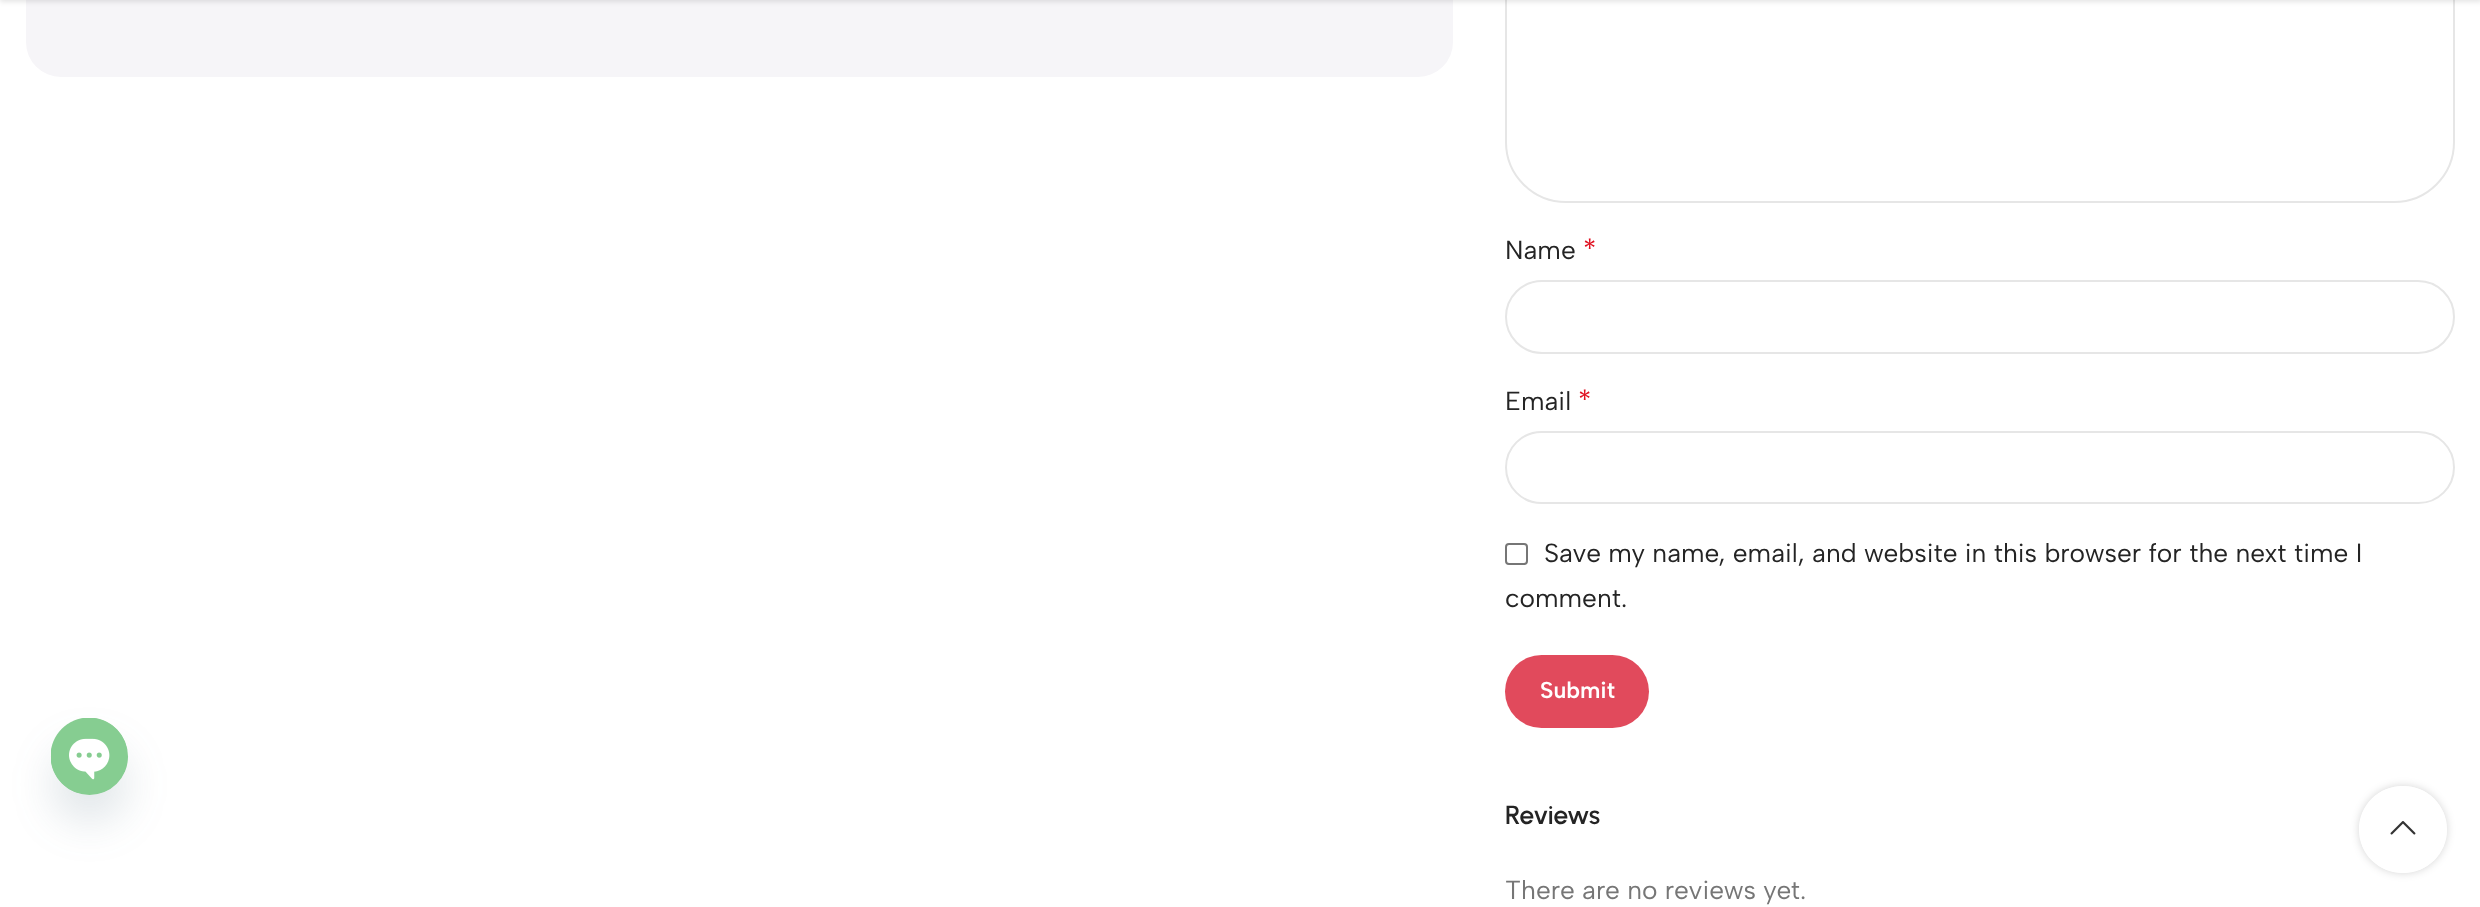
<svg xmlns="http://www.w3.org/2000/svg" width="2480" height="907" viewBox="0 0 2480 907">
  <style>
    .t1 { font: 26.25px Albert Sans; fill: #242424; }
    .t2 { font: 28px Albert Sans; fill: #e01020; }
    .t3 { font: 600 23px Albert Sans; fill: #fff; }
    .t4 { font: 600 26.25px Urbanist; fill: #242424; }
    .t5 { font: 26.25px Albert Sans; fill: #767676; }
  </style>
  <defs>
    <clipPath id="clip1"><path d="M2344 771H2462V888H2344ZM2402.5 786H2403.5C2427.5 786 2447 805.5 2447 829.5C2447 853.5 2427.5 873 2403.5 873H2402.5C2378.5 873 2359 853.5 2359 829.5C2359 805.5 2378.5 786 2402.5 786Z" clip-rule="evenodd"/></clipPath>
  </defs>
  <rect width="100%" height="100%" fill="#fff"/>
  <rect x="51" y="746" width="77" height="77" rx="38.5" fill="#49687e29" filter="blur(21px)"/>
  <circle cx="89.5" cy="756.5" r="38.5" fill="#86cd91"/>
  <image x="51" y="718" width="76" height="75" href="images/1.png"/>
  <rect x="26" y="-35" width="1427" height="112" rx="35" fill="#f6f5f8"/>
  <rect x="1506" y="-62" width="948" height="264" rx="60" fill="none" stroke="#e6e6e6" stroke-width="2"/>
  <rect x="0" y="-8" width="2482" height="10" fill="#0000001a" filter="blur(2.5px)"/>
  <text x="1505" y="259" class="t1">Name</text>
  <text x="1583" y="259" class="t2">*</text>
  <rect x="1506" y="281" width="948" height="72" rx="36" fill="none" stroke="#e6e6e6" stroke-width="2"/>
  <text x="1505" y="410" class="t1">Email</text>
  <text x="1578" y="410" class="t2">*</text>
  <rect x="1506" y="432" width="948" height="71" rx="35.5" fill="none" stroke="#e6e6e6" stroke-width="2"/>
  <rect x="1506" y="544" width="21" height="20" rx="3" fill="none" stroke="#767676" stroke-width="2"/>
  <text x="1544" y="562" class="t1">Save my name, email, and website in this browser for the next time I</text>
  <text x="1505" y="607" class="t1">comment.</text>
  <rect x="1505" y="655" width="144" height="73" rx="36.5" fill="#e14a5c"/>
  <text x="1540" y="698" class="t3">Submit</text>
  <text x="1505" y="824" class="t4">Reviews</text>
  <text x="1505" y="899" class="t5">There are no reviews yet.</text>
  <g clip-path="url(#clip1)">
    <rect x="2359" y="786" width="88" height="87" rx="43.5" fill="#0000002b" filter="blur(4.5px)"/>
  </g>
  <rect x="2359" y="786" width="88" height="87" rx="43.5" fill="#ffffffe6"/>
  <image x="2390" y="821" width="26" height="14" href="images/2.png"/>
</svg>
